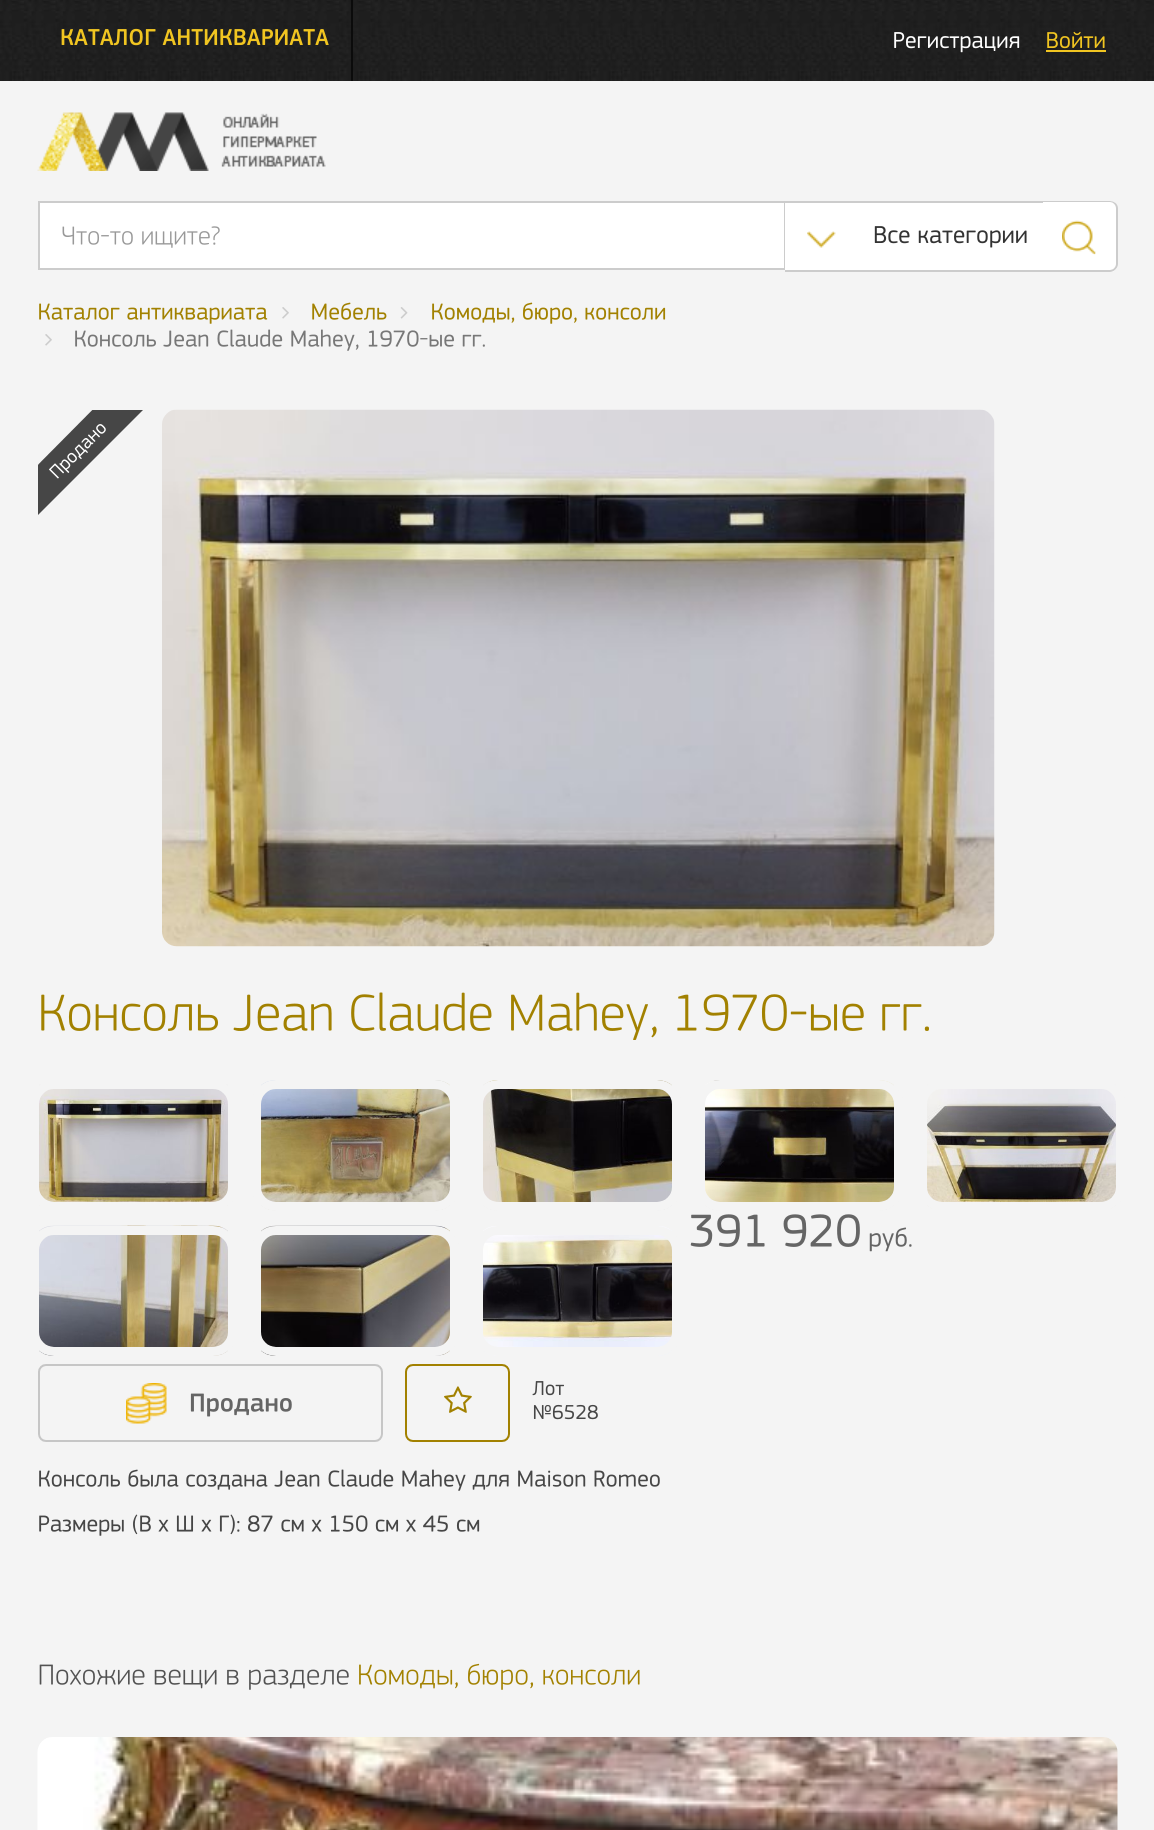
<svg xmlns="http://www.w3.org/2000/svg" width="1154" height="1830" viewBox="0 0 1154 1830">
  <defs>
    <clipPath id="clip1"><rect x="38" y="410" width="127" height="127"/></clipPath>
  </defs>
  <rect width="100%" height="100%" fill="#f4f4f4"/>
  <image x="0" y="0" width="1154" height="81" href="images/1.png"/>
  <rect x="351" y="0" width="2" height="81" fill="#0b0b0b"/>
  <image x="61" y="28" width="268" height="18" href="images/2.png"/>
  <image x="894" y="32" width="126" height="21" href="images/3.png"/>
  <image x="1047" y="31" width="58" height="18" href="images/4.png"/>
  <rect x="1046" y="50" width="60" height="2" fill="#f1c521"/>
  <image x="37" y="112" width="289" height="59" href="images/5.png"/>
  <rect x="39" y="202" width="746" height="67" fill="#fff" stroke="#ccc" stroke-width="2"/>
  <image x="62" y="226" width="158" height="22" href="images/6.png"/>
  <rect x="785" y="203" width="258" height="67" fill="#fff"/>
  <rect x="785" y="201" width="259" height="2" fill="#ccc"/>
  <rect x="785" y="270" width="259" height="2" fill="#ccc"/>
  <image x="807" y="231" width="29" height="17" href="images/7.png"/>
  <path d="M1043 201H1110C1114.5 201 1118 204.5 1118 209V264C1118 268.5 1114.5 272 1110 272H1043Z" fill="#fff"/>
  <path d="M1042 201H1110C1114 201 1118 204 1118 208V264C1118 268 1114 272 1110 272H1042ZM1042 202H1110C1113 202 1116 205 1116 208V264C1116 267 1113 270 1110 270H1042Z" fill="#ccc" fill-rule="evenodd"/>
  <image x="1062" y="220" width="34" height="35" href="images/8.png"/>
  <image x="874" y="226" width="153" height="22" href="images/9.png"/>
  <image x="39" y="303" width="229" height="21" href="images/10.png"/>
  <image x="282" y="307" width="7" height="12" href="images/11.png"/>
  <image x="312" y="302" width="75" height="18" href="images/12.png"/>
  <image x="400" y="307" width="8" height="12" href="images/13.png"/>
  <image x="432" y="302" width="234" height="22" href="images/14.png"/>
  <image x="45" y="334" width="7" height="12" href="images/11.png"/>
  <image x="75" y="329" width="410" height="22" href="images/15.png"/>
  <g clip-path="url(#clip1)">
    <path d="M2 501L129 373L154 399L27 526Z" fill="#464646"/>
  </g>
  <image x="49" y="424" width="57" height="55" href="images/16.png"/>
  <image x="162" y="409" width="833" height="538" href="images/17.png"/>
  <image x="41" y="992" width="888" height="48" href="images/18.png"/>
  <image x="39" y="1084" width="189" height="122" href="images/19.png"/>
  <rect x="34.5" y="1084.5" width="198" height="122" rx="19.5" fill="none" stroke="#f4f4f4" stroke-width="9"/>
  <image x="261" y="1080" width="189" height="131" href="images/20.png"/>
  <rect x="256.5" y="1084.5" width="198" height="122" rx="19.5" fill="none" stroke="#f4f4f4" stroke-width="9"/>
  <image x="483" y="1080" width="189" height="131" href="images/21.png"/>
  <rect x="478.5" y="1084.5" width="198" height="122" rx="19.5" fill="none" stroke="#f4f4f4" stroke-width="9"/>
  <image x="705" y="1080" width="189" height="131" href="images/22.png"/>
  <rect x="700.5" y="1084.5" width="198" height="122" rx="19.5" fill="none" stroke="#f4f4f4" stroke-width="9"/>
  <image x="927" y="1084" width="189" height="125" href="images/23.png"/>
  <rect x="922.5" y="1084.5" width="198" height="122" rx="19.5" fill="none" stroke="#f4f4f4" stroke-width="9"/>
  <image x="39" y="1225" width="189" height="131" href="images/24.png"/>
  <rect x="34.5" y="1230.5" width="198" height="121" rx="19.5" fill="none" stroke="#f4f4f4" stroke-width="9"/>
  <image x="261" y="1225" width="189" height="131" href="images/25.png"/>
  <rect x="256.5" y="1230.5" width="198" height="121" rx="19.5" fill="none" stroke="#f4f4f4" stroke-width="9"/>
  <image x="483" y="1226" width="189" height="130" href="images/26.png"/>
  <rect x="478.5" y="1230.5" width="198" height="121" rx="19.5" fill="none" stroke="#f4f4f4" stroke-width="9"/>
  <image x="690" y="1214" width="170" height="33" href="images/27.png"/>
  <image x="869" y="1227" width="43" height="25" href="images/28.png"/>
  <rect x="39" y="1365" width="343" height="76" rx="7" fill="none" stroke="#c6c6c6" stroke-width="2"/>
  <image x="126" y="1383" width="41" height="41" href="images/29.png"/>
  <image x="190" y="1393" width="102" height="24" href="images/30.png"/>
  <rect x="406" y="1365" width="103" height="76" rx="7" fill="none" stroke="#a28100" stroke-width="2"/>
  <image x="444" y="1386" width="28" height="27" href="images/31.png"/>
  <image x="532" y="1381" width="32" height="15" href="images/32.png"/>
  <image x="533" y="1405" width="18" height="14" href="images/33.png"/>
  <image x="552" y="1404" width="46" height="16" href="images/34.png"/>
  <image x="39" y="1469" width="621" height="22" href="images/35.png"/>
  <image x="39" y="1514" width="441" height="22" href="images/36.png"/>
  <image x="39" y="1664" width="310" height="26" href="images/37.png"/>
  <image x="359" y="1663" width="281" height="27" href="images/38.png"/>
  <image x="37" y="1737" width="1081" height="93" href="images/39.png"/>
</svg>
